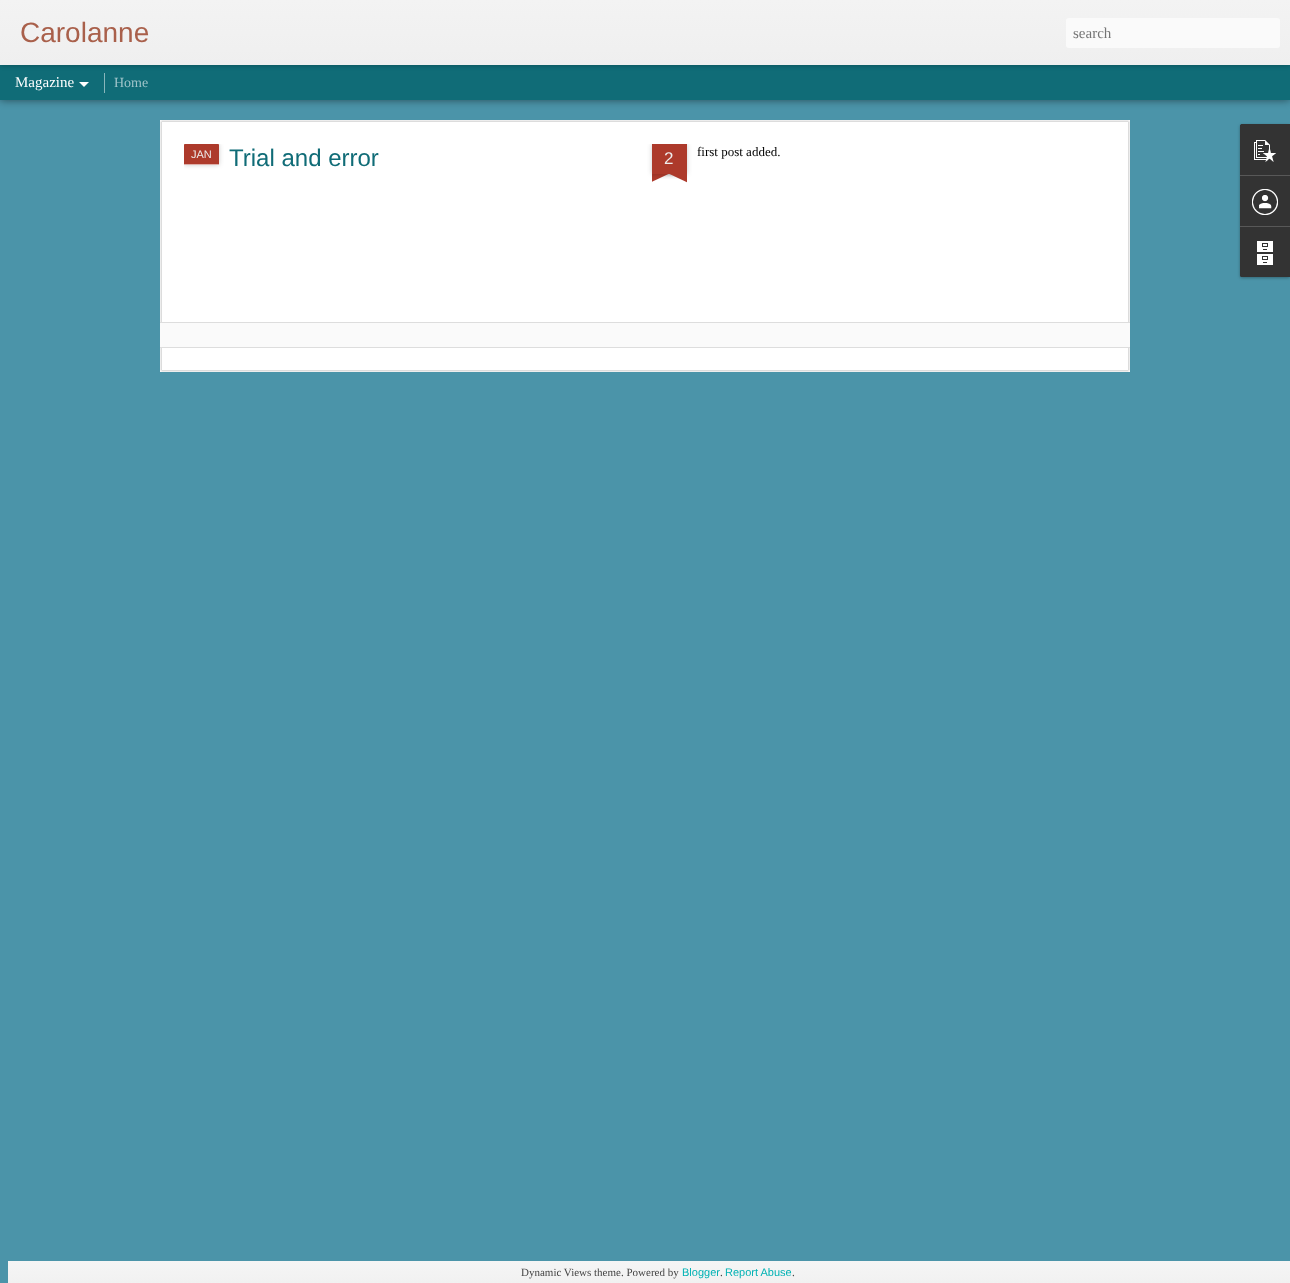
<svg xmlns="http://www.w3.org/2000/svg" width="1290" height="1283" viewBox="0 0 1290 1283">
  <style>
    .t1 { font: 28px Liberation Sans; fill: #a9604b; }
    .t2 { font: 15px Liberation Serif; fill: #757575; }
    .t3 { font: 15px Liberation Serif; fill: #fff; }
    .t4 { font: 14px Liberation Serif; fill: #9fc4c9; }
    .t5 { font: 24px Liberation Sans; fill: #106c77; }
    .t6 { font: 13px Liberation Serif; fill: #000; }
    .t7 { font: 11px Liberation Sans; fill: #eee; }
    .t8 { font: 17px Liberation Sans; fill: #eee; }
    .t9 { font: 11px Liberation Serif; fill: #444; }
    .t10 { font: 11px Liberation Sans; fill: #00b2b4; }
  </style>
  <defs>
    <linearGradient id="g1" gradientUnits="userSpaceOnUse" x1="0" y1="0" x2="0" y2="65"><stop offset="0" stop-color="#f3f3f3"/><stop offset="1" stop-color="#efefef"/></linearGradient>
    <clipPath id="clip1"><rect x="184" y="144" width="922" height="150"/></clipPath>
    <clipPath id="clip2"><rect x="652" y="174" width="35" height="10"/></clipPath>
    <clipPath id="clip3"><rect x="652" y="174" width="35" height="10"/></clipPath>
    <linearGradient id="g2" gradientUnits="userSpaceOnUse" x1="658" y1="1261" x2="658" y2="1283"><stop offset="0" stop-color="#f5f5f5"/><stop offset="1" stop-color="#f1f1f1"/></linearGradient>
  </defs>
  <rect width="100%" height="100%" fill="#4b94a9"/>
  <rect x="0" y="65" width="1290" height="35" fill="#00000080" filter="blur(4px)"/>
  <rect x="0" y="65" width="1290" height="35" fill="#106c77"/>
  <rect x="104" y="73" width="1" height="20" fill="#88b6bb"/>
  <rect x="0" y="0" width="1290" height="65" fill="#0000004d" filter="blur(2.5px)"/>
  <rect x="0" y="0" width="1290" height="65" fill="url(#g1)"/>
  <text x="20" y="42" class="t1">Carolanne</text>
  <rect x="1066" y="18" width="214" height="30" rx="3" fill="#fafafa"/>
  <text x="1073" y="38" class="t2">search</text>
  <text x="15" y="87" class="t3">Magazine</text>
  <path d="M79 82H89L84 87Z" fill="#fff"/>
  <text x="114" y="87" class="t4">Home</text>
  <rect x="160" y="120" width="970" height="252" fill="#fff"/>
  <image x="160" y="120" width="970" height="252" href="images/1.png"/>
  <text x="229" y="166" class="t5">Trial and error</text>
  <text x="697" y="156" class="t6">first post added.</text>
  <g clip-path="url(#clip1)">
    <rect x="184" y="144" width="35" height="21" rx="1" fill="#00000033" filter="blur(2.5px)"/>
  </g>
  <path d="M185 144H218C218.5 144 219 144.5 219 145V165H184V145C184 144.5 184.5 144 185 144Z" fill="#ad3a2b"/>
  <rect x="184" y="164" width="35" height="1" fill="#deb0aa"/>
  <text x="191" y="158" class="t7">JAN</text>
  <g clip-path="url(#clip1)">
    <rect x="652" y="144" width="35" height="30" fill="#00000033" filter="blur(2.5px)"/>
  </g>
  <rect x="652" y="144" width="35" height="30" fill="#ad3a2b"/>
  <text x="664" y="164" class="t8">2</text>
  <g clip-path="url(#clip2)">
    <rect x="643" y="164" width="50" height="10" fill="#00000033" filter="blur(2.5px)"/>
  </g>
  <g clip-path="url(#clip3)">
    <path d="M643 175L688 154L692 163L647 184Z" fill="#ad3a2b"/>
  </g>
  <g clip-path="url(#clip2)">
    <rect x="646" y="164" width="50" height="10" fill="#00000033" filter="blur(2.5px)"/>
  </g>
  <g clip-path="url(#clip3)">
    <path d="M650 154L695 175L691 184L646 163Z" fill="#ad3a2b"/>
  </g>
  <rect x="160" y="323" width="970" height="24" fill="#fafafa"/>
  <rect x="160" y="322" width="970" height="1" fill="#ddd"/>
  <rect x="160" y="347" width="970" height="1" fill="#ddd"/>
  <rect x="1240" y="125" width="50" height="153" rx="2" fill="#0000004d" filter="blur(1.5px)"/>
  <path d="M1242 124H1290V277H1242C1241 277 1240 276 1240 275V126C1240 125 1241 124 1242 124Z" fill="#333"/>
  <path d="M1242 124H1290V175H1240V126C1240 125 1241 124 1242 124Z" fill="#333"/>
  <image x="1254" y="140" width="22" height="22" href="images/2.png"/>
  <rect x="1240" y="175" width="50" height="1" fill="#585858"/>
  <image x="1252" y="189" width="26" height="26" href="images/3.png"/>
  <path d="M1240 226H1290V277H1242C1241 277 1240 276 1240 275Z" fill="#333"/>
  <rect x="1240" y="226" width="50" height="1" fill="#585858"/>
  <image x="1257" y="241" width="16" height="24" href="images/4.png"/>
  <rect x="8" y="1261" width="1282" height="22" fill="url(#g2)"/>
  <text x="521" y="1276" class="t9">Dynamic Views theme. Powered by</text>
  <text x="682" y="1276" class="t10">Blogger</text>
  <text x="720" y="1276" class="t9">.</text>
  <text x="725" y="1276" class="t10">Report Abuse</text>
  <text x="792" y="1276" class="t9">.</text>
</svg>
